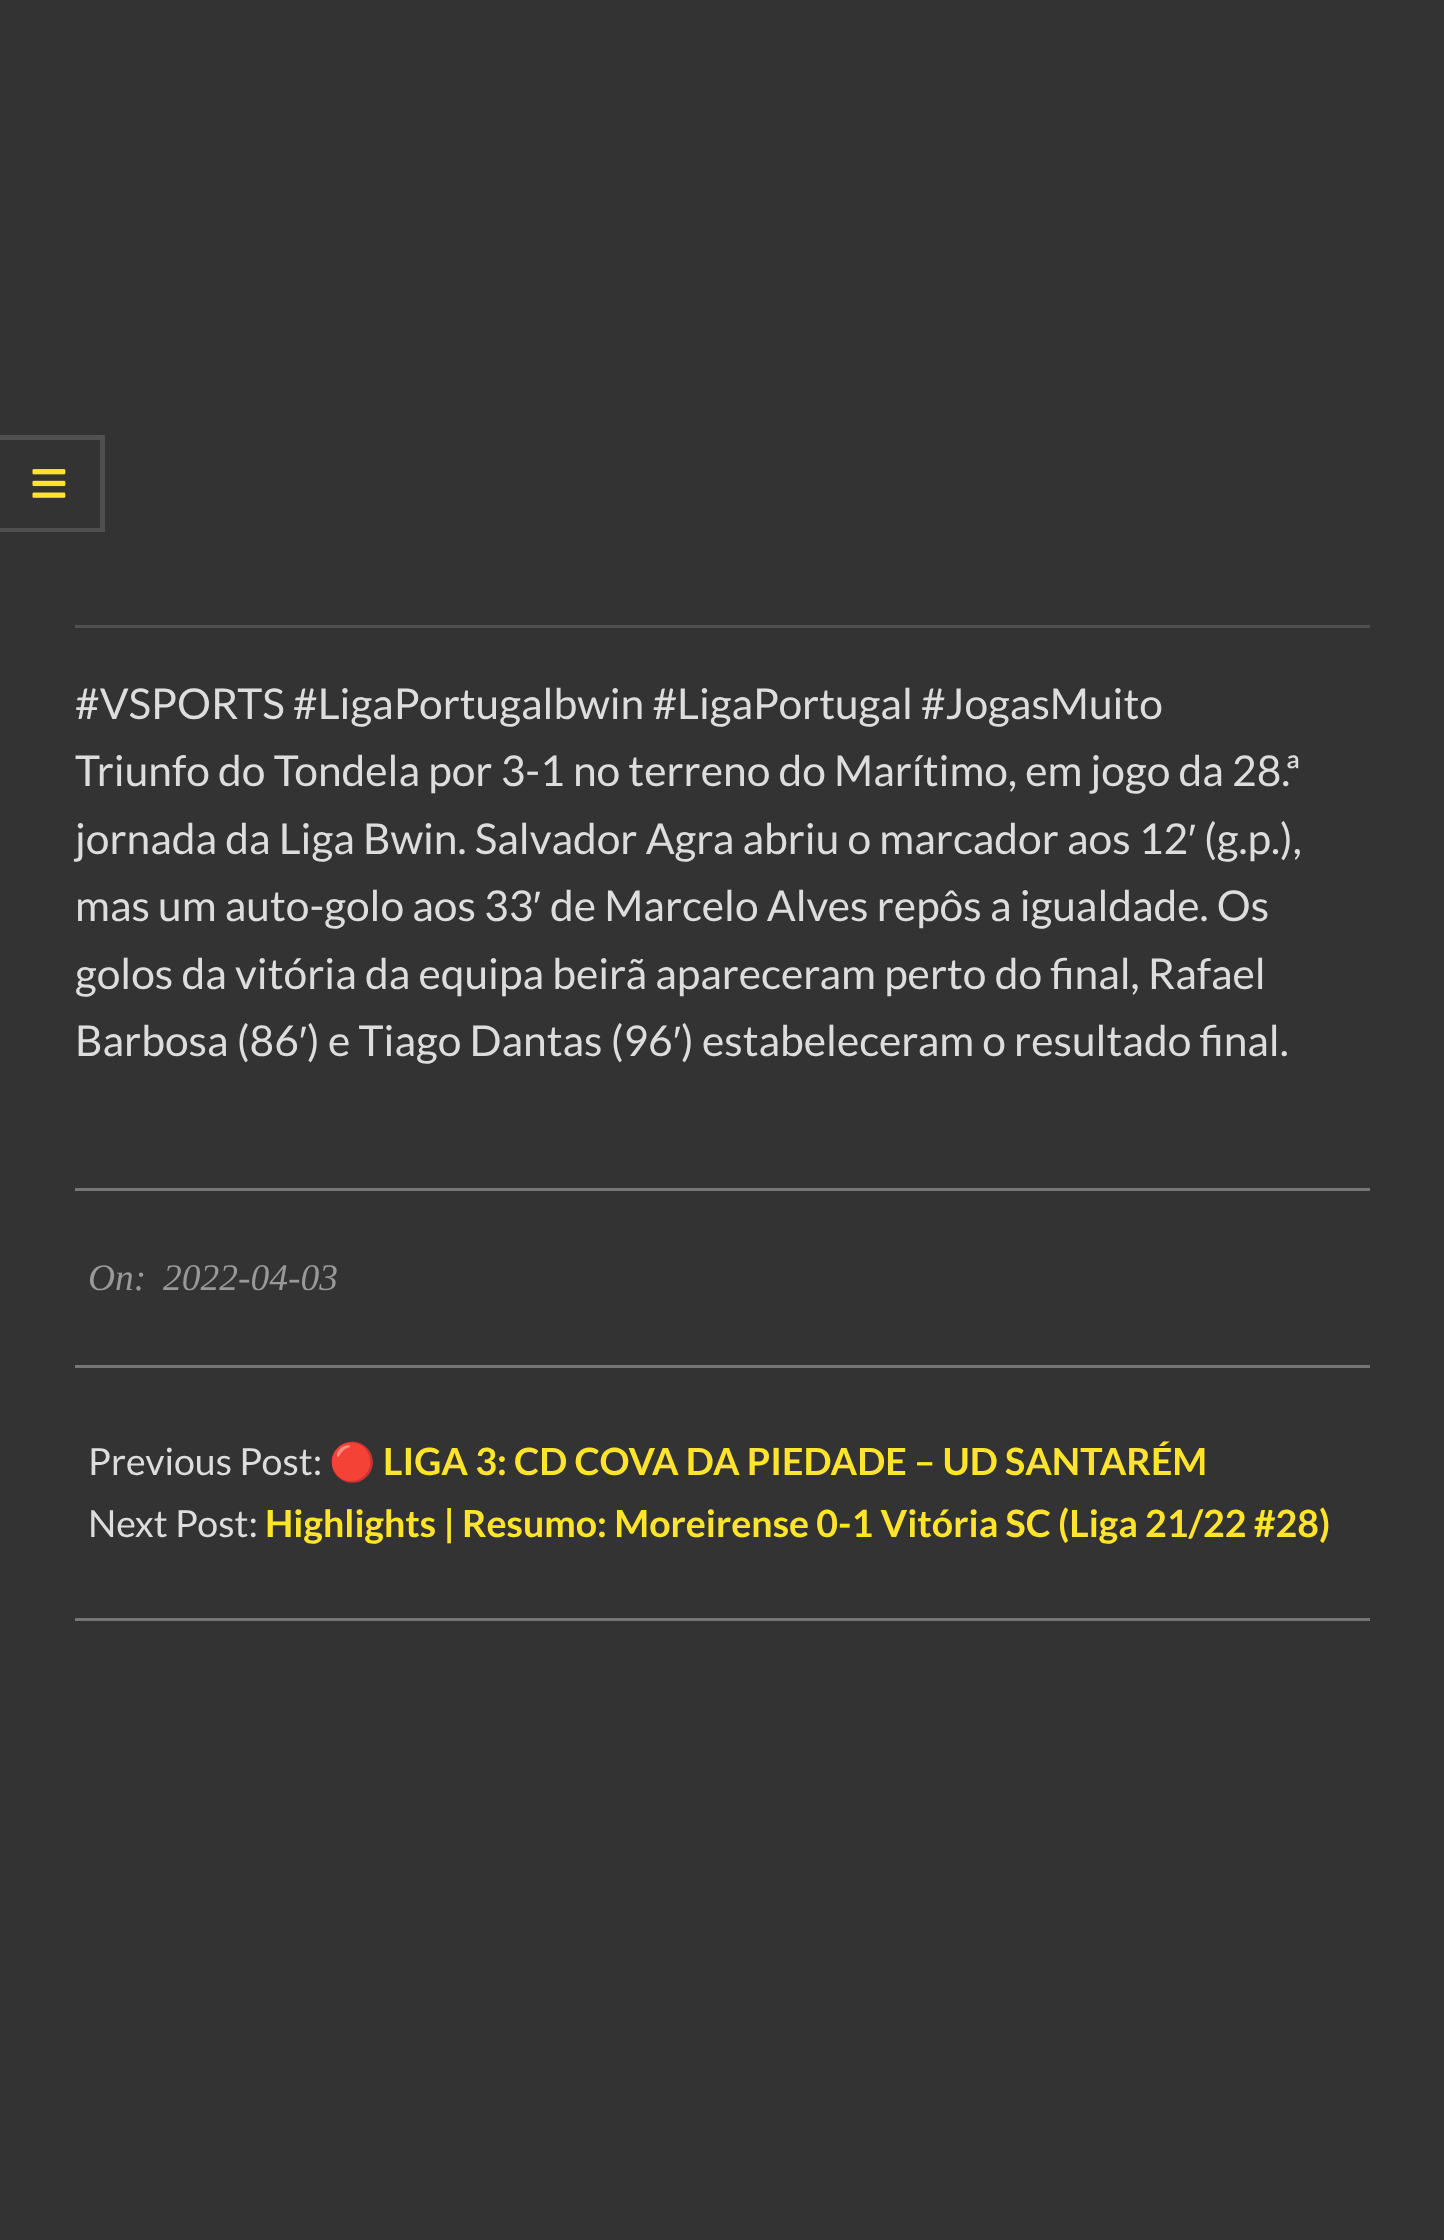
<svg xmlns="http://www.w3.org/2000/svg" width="1444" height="2240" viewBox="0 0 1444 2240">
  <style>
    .t1 { font: 42.5px Lato; fill: #ddd; }
    .t2 { font: 42.5px Liberation Sans; fill: #ddd; }
    .t3 { font: italic 37.5px Liberation Serif; fill: #999; }
    .t4 { font: 37.5px Lato; fill: #ddd; }
    .t5 { font: bold 37.5px Noto Color Emoji; fill: #ffe42d; }
    .t6 { font: bold 37.5px Lato; fill: #ffe42d; }
  </style>
  <rect width="100%" height="100%" fill="#333"/>
  <path d="M0 435H105L100 440H0Z" fill="#505050"/>
  <path d="M105 435V532L100 528V440Z" fill="#ffffff24"/>
  <path d="M105 532H0V528H100Z" fill="#ffffff24"/>
  <image x="32" y="469" width="34" height="29" href="images/1.png"/>
  <rect x="75" y="1188" width="1295" height="3" fill="#767676"/>
  <rect x="75" y="625" width="1295" height="3" fill="#505050"/>
  <text x="75" y="719" class="t1">#VSPORTS #LigaPortugalbwin #LigaPortugal #JogasMuito</text>
  <text x="75" y="786" class="t1">Triunfo do Tondela por 3-1 no terreno do Marítimo, em jogo da 28.ª</text>
  <text x="75" y="854" class="t1">jornada da Liga Bwin. Salvador Agra abriu o marcador aos 12</text>
  <text x="1188" y="854" class="t2">′</text>
  <text x="1204" y="854" class="t1">(g.p.),</text>
  <text x="75" y="921" class="t1">mas um auto-golo aos 33</text>
  <text x="533" y="921" class="t2">′</text>
  <text x="550" y="921" class="t1">de Marcelo Alves repôs a igualdade. Os</text>
  <text x="75" y="989" class="t1">golos da vitória da equipa beirã apareceram perto do final, Rafael</text>
  <text x="75" y="1056" class="t1">Barbosa (86 ) e Tiago Dantas (96 ) estabeleceram o resultado final.</text>
  <text x="299" y="1056" class="t2">′</text>
  <text x="673" y="1056" class="t2">′</text>
  <rect x="75" y="1365" width="1295" height="3" fill="#767676"/>
  <text x="88" y="1290" class="t3">On:</text>
  <text x="163" y="1290" class="t3">2022-04-03</text>
  <rect x="75" y="1618" width="1295" height="3" fill="#767676"/>
  <text x="88" y="1475" class="t4">Previous Post:</text>
  <text x="329" y="1475" class="t5">🔴</text>
  <text x="383" y="1475" class="t6">LIGA 3: CD COVA DA PIEDADE – UD SANTARÉM</text>
  <text x="88" y="1537" class="t4">Next Post:</text>
  <text x="265" y="1537" class="t6">Highlights | Resumo: Moreirense 0-1 Vitória SC (Liga 21/22 #28)</text>
</svg>
